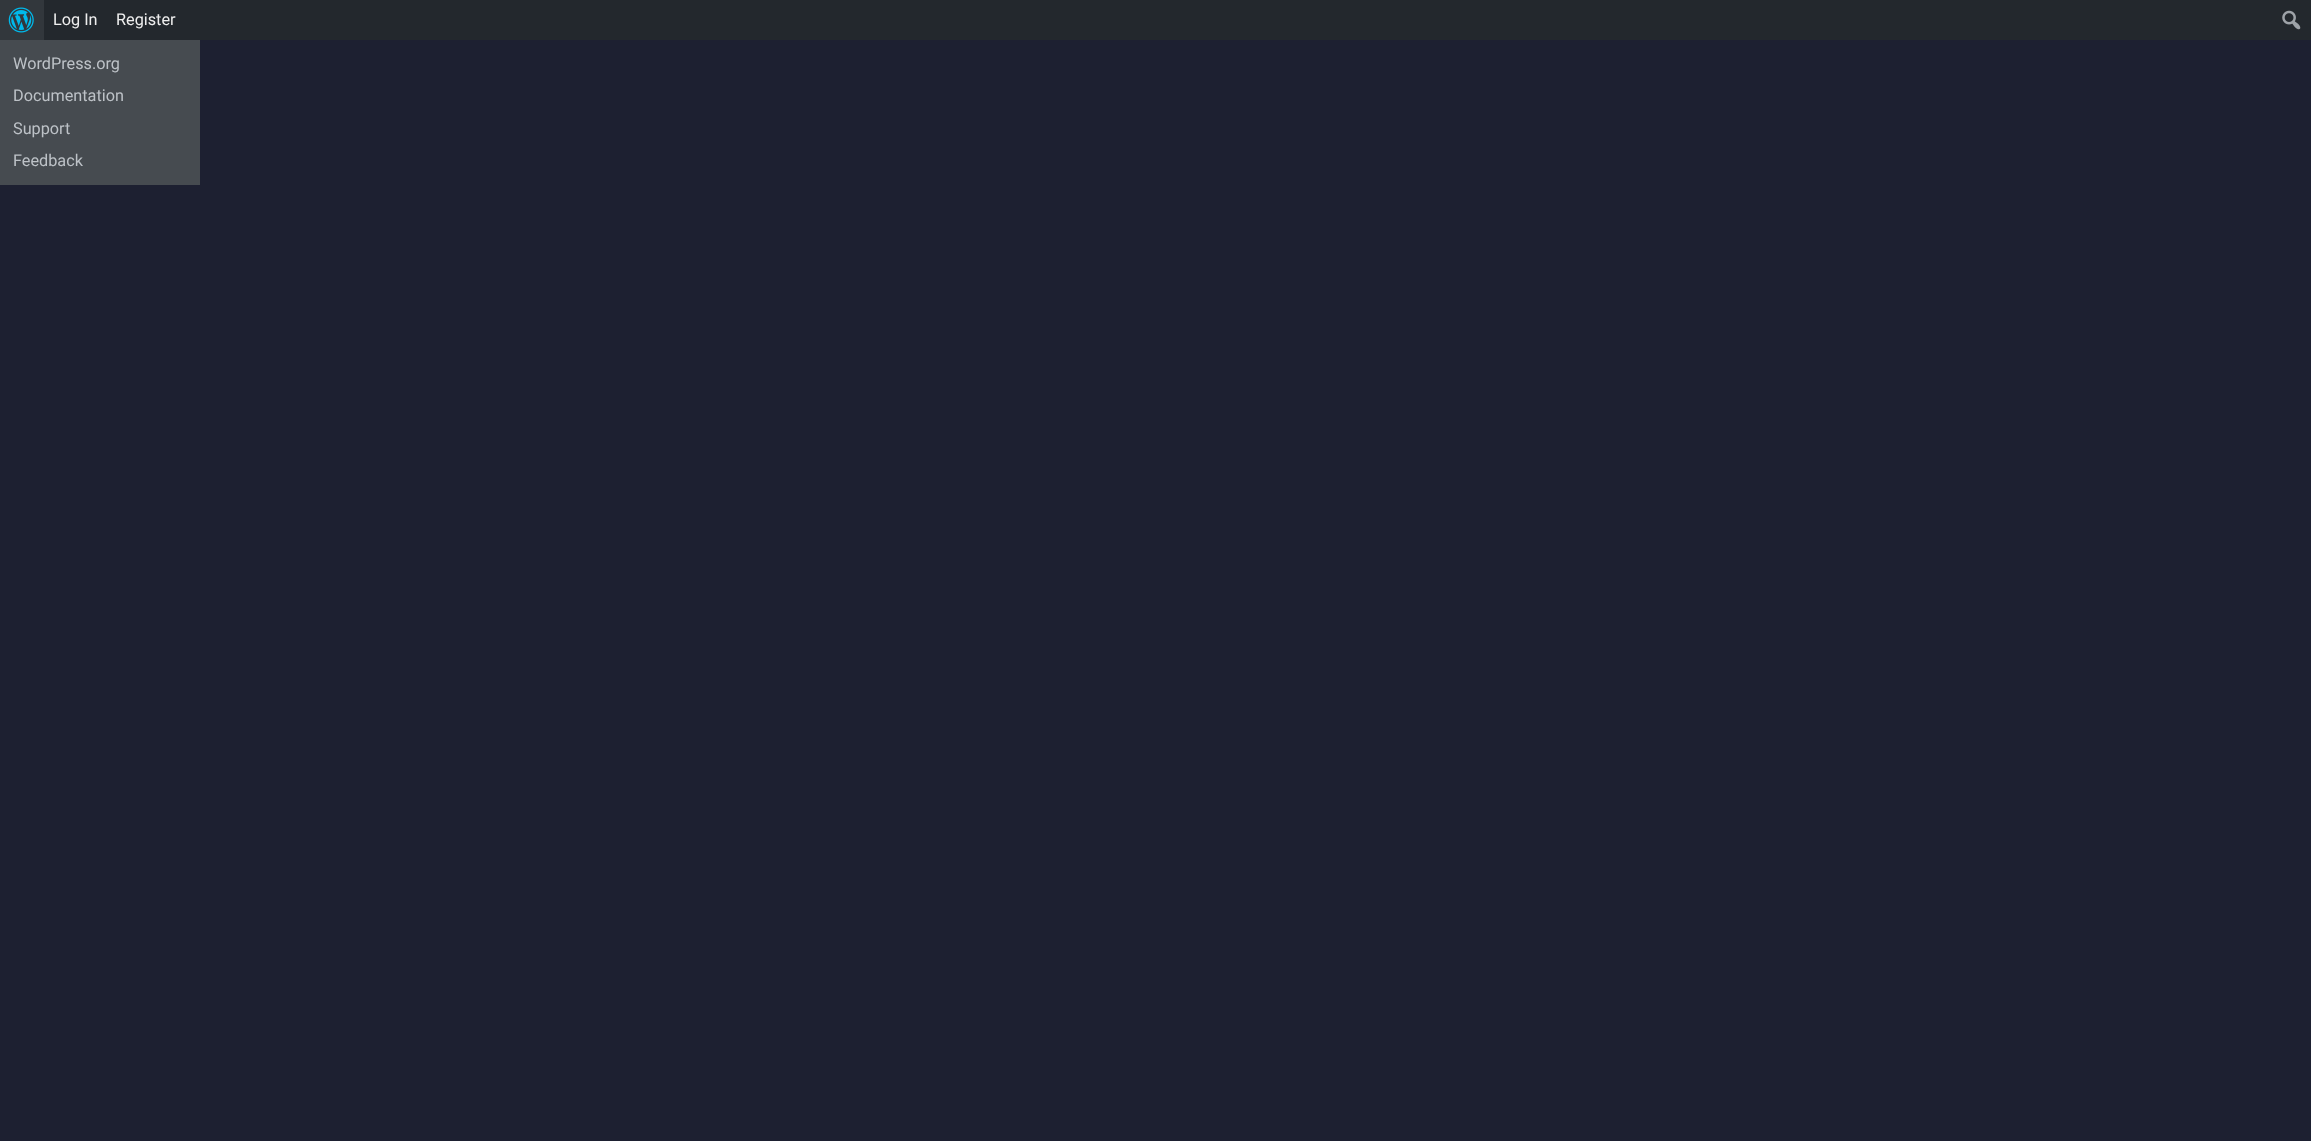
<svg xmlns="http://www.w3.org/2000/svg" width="2311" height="1141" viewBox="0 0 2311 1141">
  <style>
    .t1 { font: 16.25px Roboto; fill: #eee; }
    .t2 { font: 16.25px Roboto; fill: #bdc2c7; }
  </style>
  <rect width="100%" height="100%" fill="#1d2031"/>
  <rect x="44" y="0" width="2267" height="40" fill="#23282d"/>
  <text x="53" y="25" class="t1">Log In</text>
  <text x="116" y="25" class="t1">Register</text>
  <rect x="0" y="0" width="44" height="40" fill="#32373c"/>
  <image x="8" y="7" width="26" height="26" href="images/1.png"/>
  <rect x="0" y="40" width="200" height="145" fill="#464b50"/>
  <text x="13" y="69" class="t2">WordPress.org</text>
  <text x="13" y="101" class="t2">Documentation</text>
  <text x="13" y="134" class="t2">Support</text>
  <text x="13" y="166" class="t2">Feedback</text>
  <image x="2282" y="10" width="19" height="20" href="images/2.png"/>
</svg>
